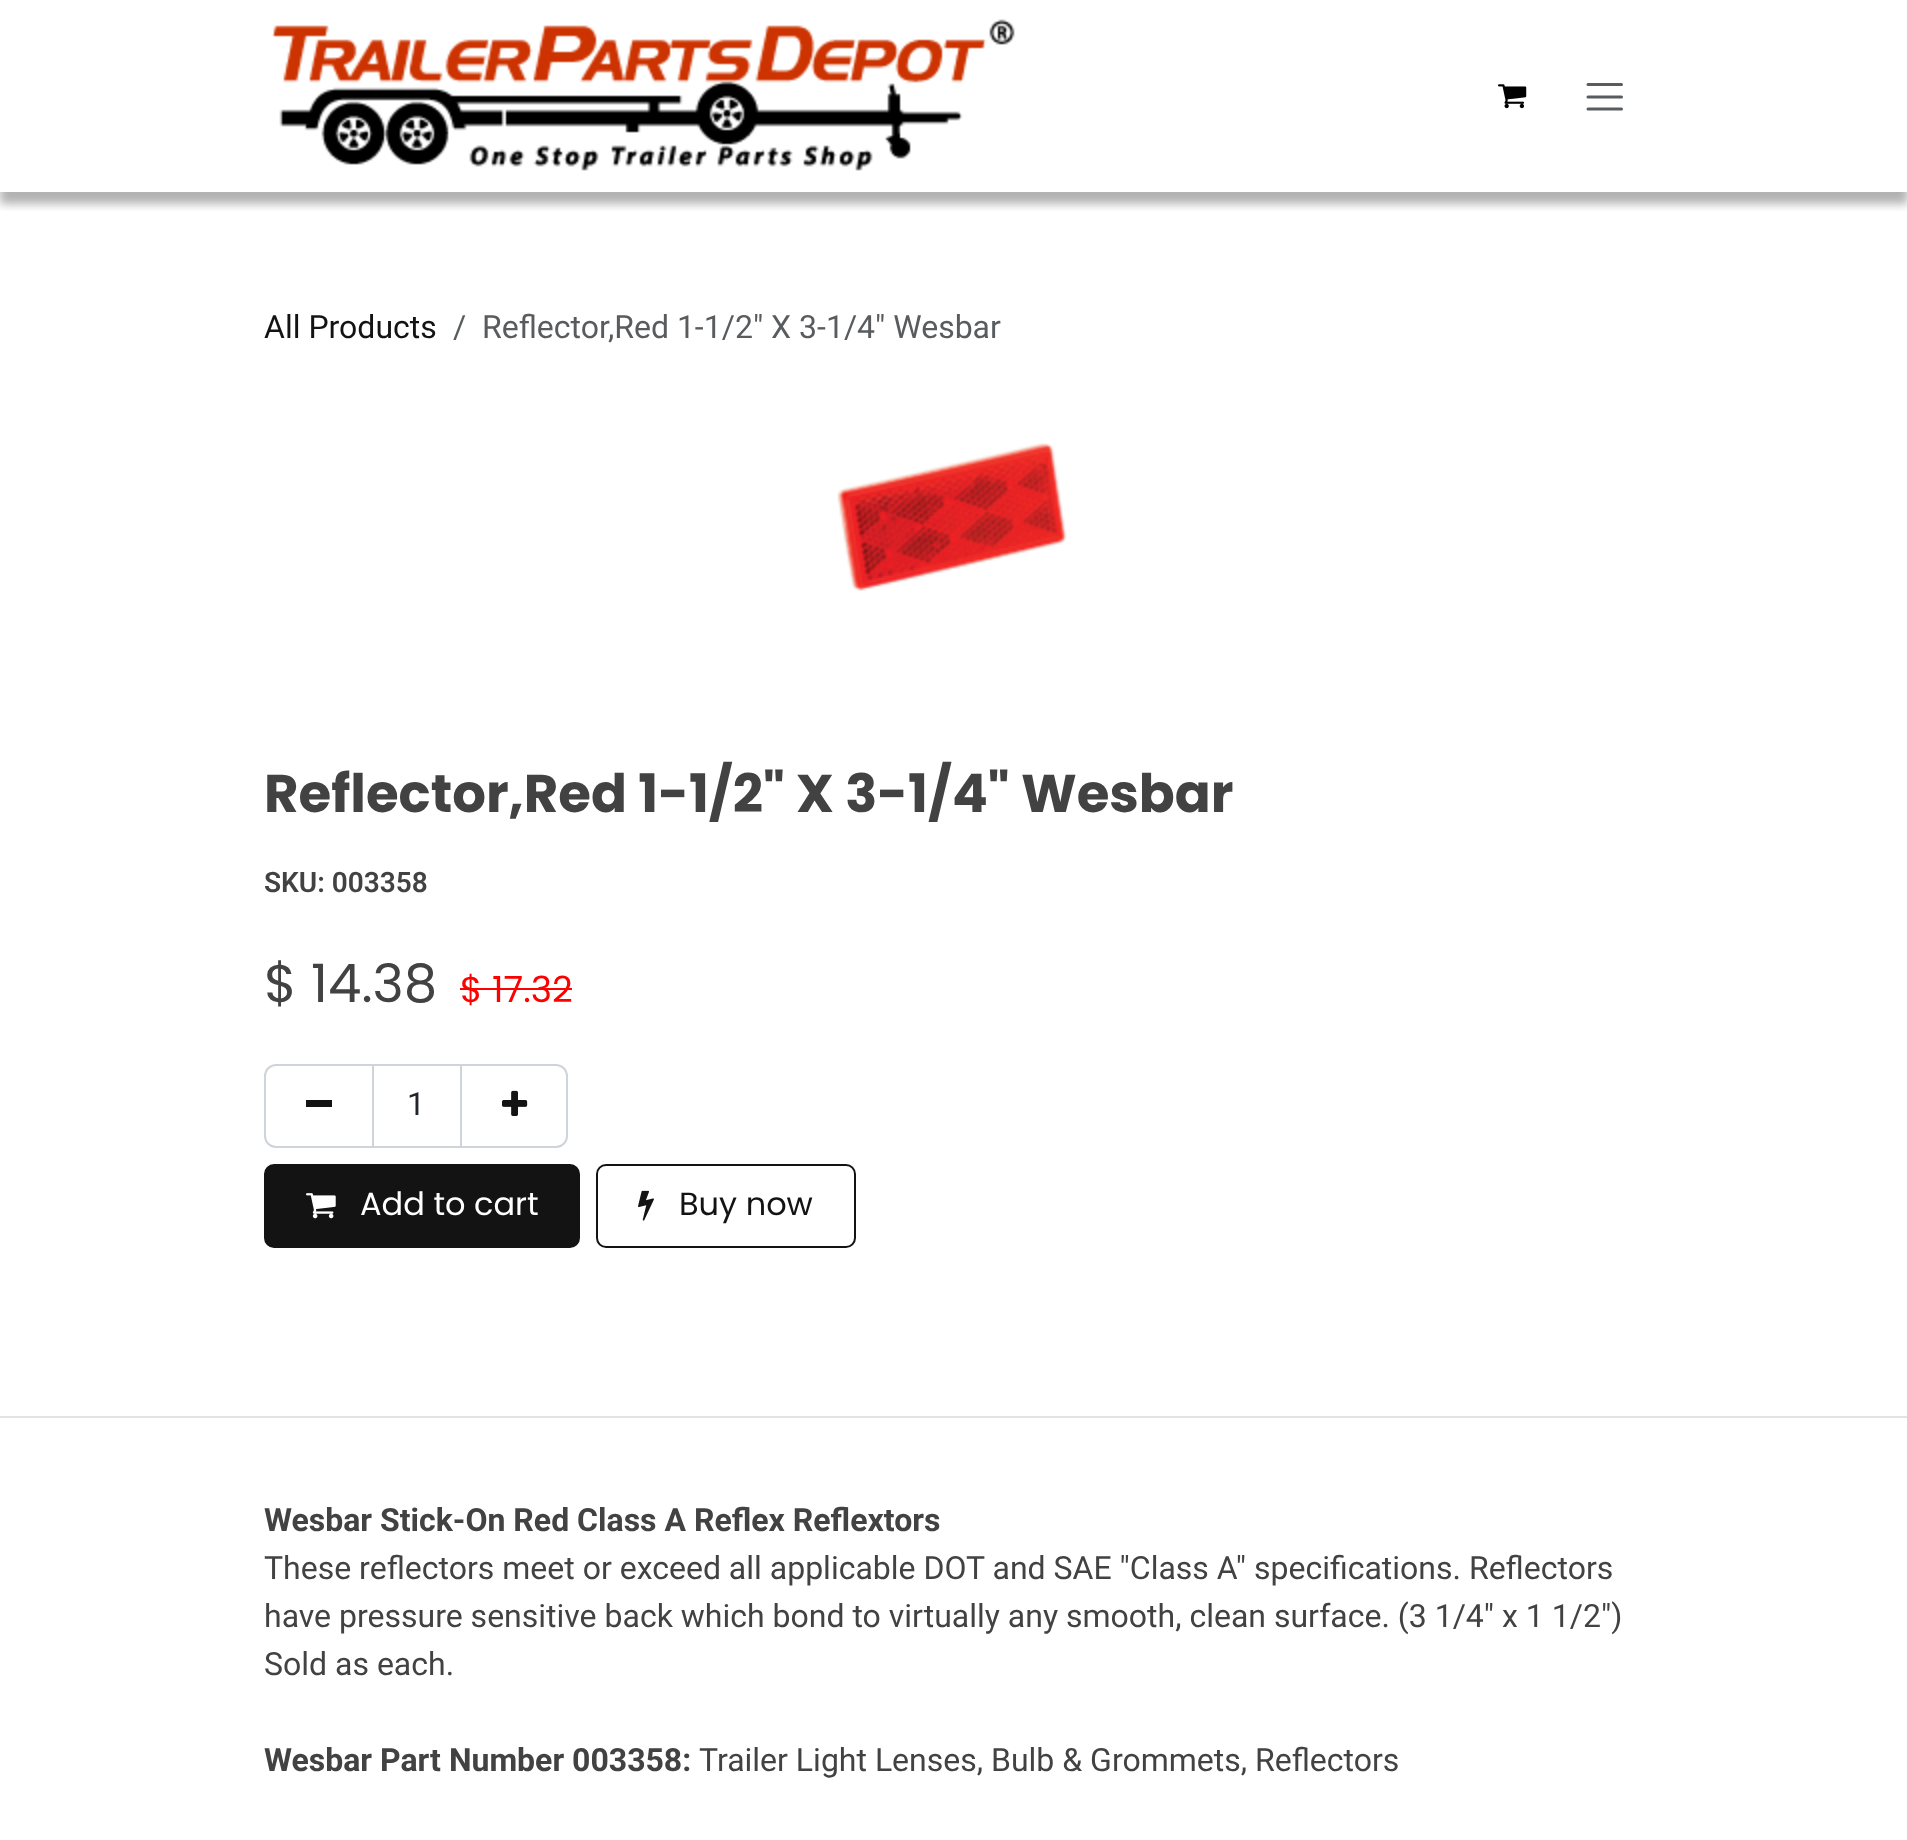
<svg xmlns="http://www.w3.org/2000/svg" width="1907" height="1840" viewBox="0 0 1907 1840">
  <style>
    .t1 { font: 32px Roboto; fill: #131314; }
    .t2 { font: 32px Roboto; fill: #595c5f; }
    .t3 { font: bold 53px Poppins; fill: #424242; }
    .t4 { font: 600 28px Roboto; fill: #424242; }
    .t5 { font: 53px Poppins; fill: #424242; }
    .t6 { font: 36px Poppins; fill: #f00; }
    .t7 { font: 32px Roboto; fill: #212529; }
    .t8 { font: 32px Poppins; fill: #fff; }
    .t9 { font: 32px Poppins; fill: #131314; }
    .t10 { font: bold 32px Roboto; fill: #424242; }
    .t11 { font: 32px Roboto; fill: #424242; }
  </style>
  <defs>
    <clipPath id="clip1"><rect x="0" y="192" width="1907" height="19"/></clipPath>
  </defs>
  <rect width="100%" height="100%" fill="#fff"/>
  <g clip-path="url(#clip1)">
    <rect x="0" y="12" width="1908" height="192" fill="#0000004d" filter="blur(5px)"/>
  </g>
  <image x="271" y="19" width="744" height="152" href="images/1.png"/>
  <image x="1498" y="84" width="29" height="25" href="images/2.png"/>
  <path d="M1588 84.5H1621.5M1588 97H1621.5M1588 109H1621.5" fill="none" stroke="#595c5f" stroke-width="3" stroke-linecap="round"/>
  <text x="264" y="338" class="t1">All Products</text>
  <text x="453" y="338" class="t2">/</text>
  <text x="482" y="338" class="t2">Reflector,Red 1-1/2" X 3-1/4" Wesbar</text>
  <image x="837" y="443" width="230" height="148" href="images/3.png"/>
  <text x="264" y="812" class="t3">Reflector,Red 1-1/2" X 3-1/4" Wesbar</text>
  <text x="264" y="892" class="t4">SKU: 003358</text>
  <text x="264" y="1002" class="t5">$ 14.38</text>
  <text x="460" y="1002" class="t6">$ 17.32</text>
  <rect x="460" y="988" width="112" height="2" fill="#f00"/>
  <rect x="373" y="1065" width="88" height="82" fill="none" stroke="#ced4da" stroke-width="2"/>
  <path d="M276 1065H373V1147H276C270 1147 265 1142 265 1136V1076C265 1070 270 1065 276 1065Z" fill="none" stroke="#ced4da" stroke-width="2"/>
  <rect x="306" y="1100" width="26" height="7" fill="#131314"/>
  <text x="407" y="1115" class="t7">1</text>
  <path d="M461 1065H556C562 1065 567 1070 567 1076V1136C567 1142 562 1147 556 1147H461Z" fill="none" stroke="#ced4da" stroke-width="2"/>
  <image x="502" y="1090" width="26" height="26" href="images/4.png"/>
  <rect x="265" y="1165" width="314" height="82" rx="9" fill="#131314" stroke="#131314" stroke-width="2"/>
  <image x="306" y="1193" width="30" height="26" href="images/5.png"/>
  <text x="360" y="1215" class="t8">Add to cart</text>
  <rect x="597" y="1165" width="258" height="82" rx="9" fill="none" stroke="#131314" stroke-width="2"/>
  <image x="638" y="1190" width="16" height="31" href="images/6.png"/>
  <text x="679" y="1215" class="t9">Buy now</text>
  <rect x="0" y="1416" width="1907" height="2" fill="#e3e3e3"/>
  <text x="264" y="1531" class="t10">Wesbar Stick-On Red Class A Reflex Reflextors</text>
  <text x="264" y="1579" class="t11">These reflectors meet or exceed all applicable DOT and SAE "Class A" specifications. Reflectors</text>
  <text x="264" y="1627" class="t11">have pressure sensitive back which bond to virtually any smooth, clean surface. (3 1/4" x 1 1/2")</text>
  <text x="264" y="1675" class="t11">Sold as each.</text>
  <text x="264" y="1771" class="t10">Wesbar Part Number 003358:</text>
  <text x="699" y="1771" class="t11">Trailer Light Lenses, Bulb &amp; Grommets, Reflectors</text>
</svg>
